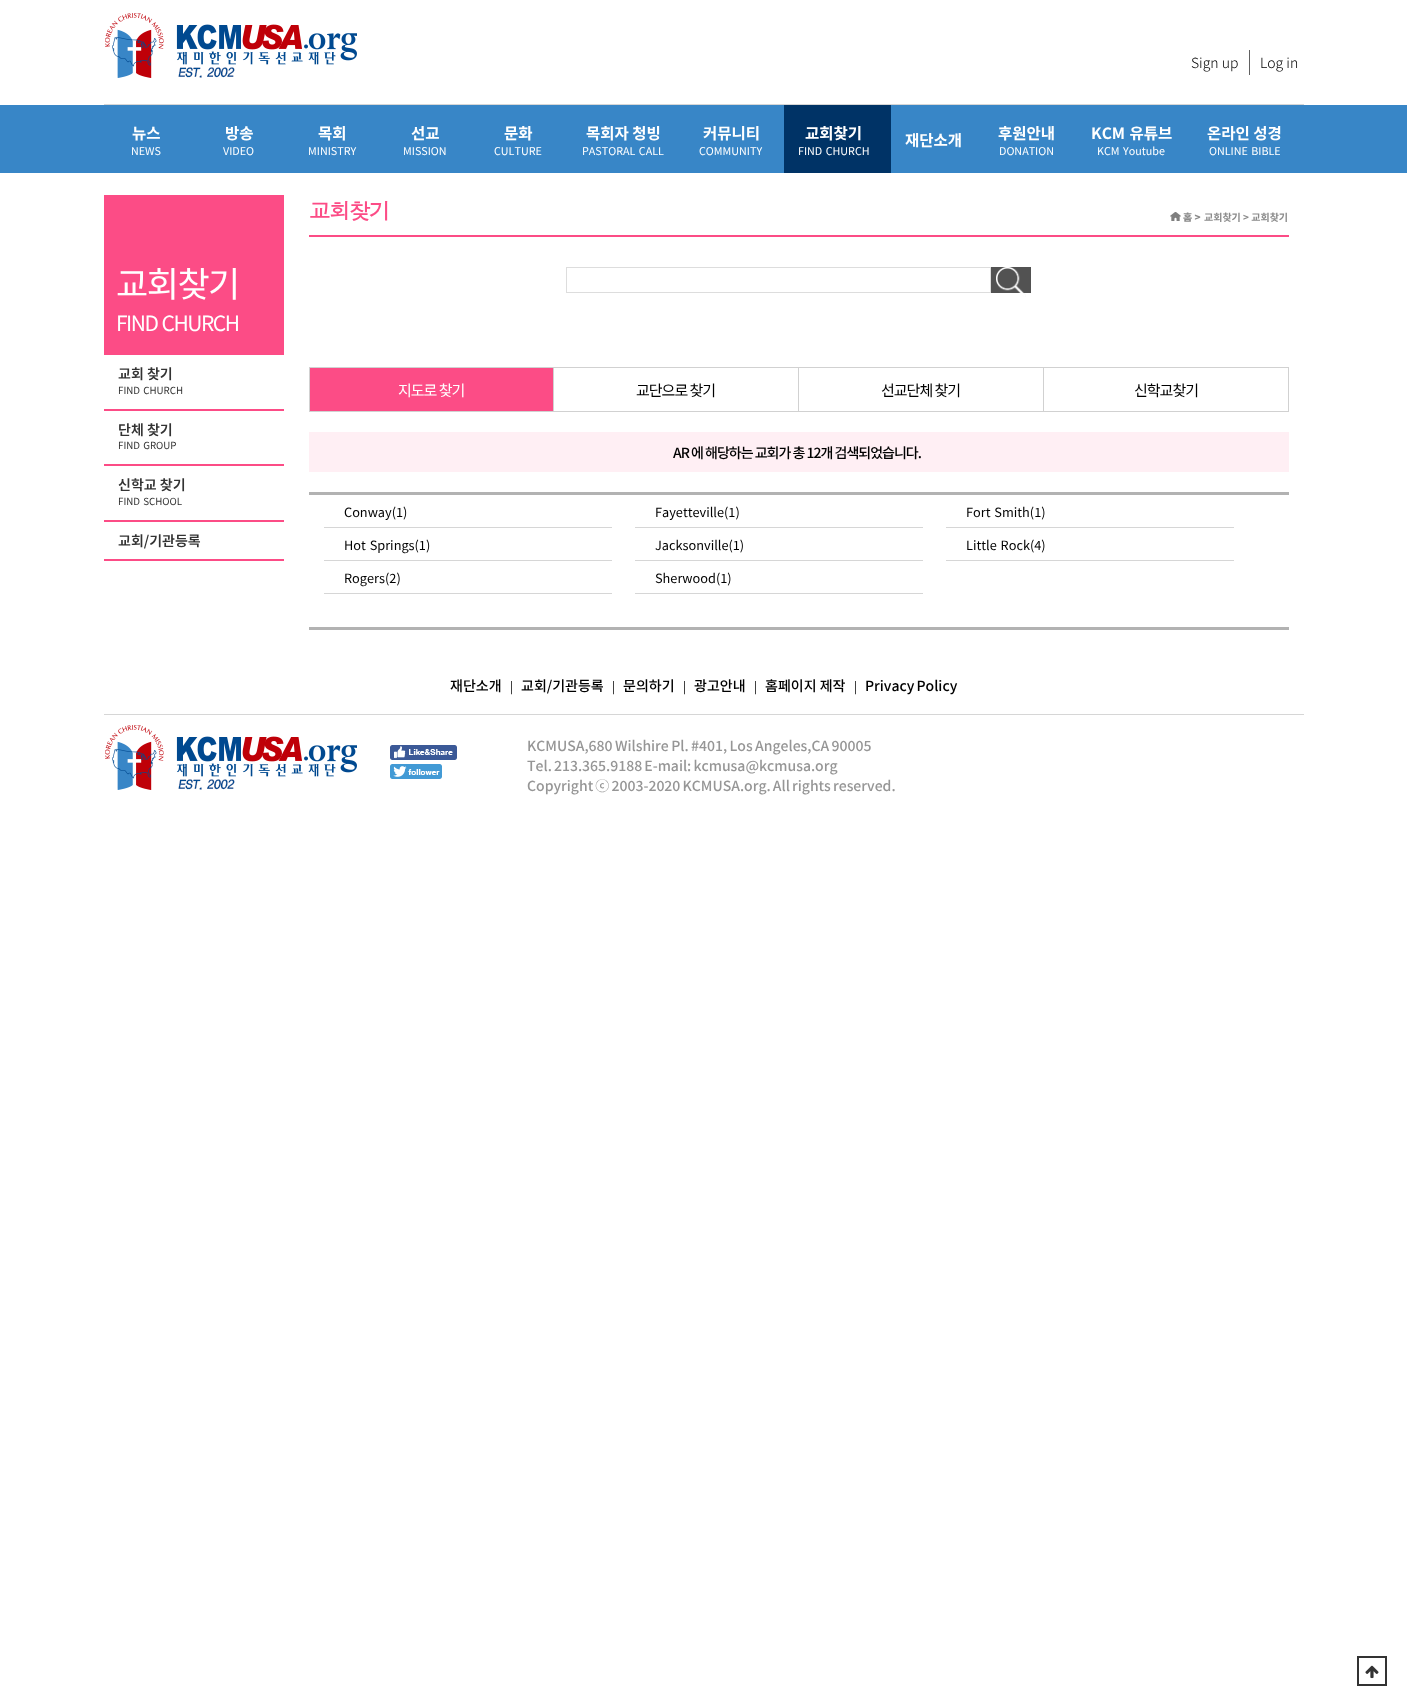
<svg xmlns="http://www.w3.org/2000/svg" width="1407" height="1706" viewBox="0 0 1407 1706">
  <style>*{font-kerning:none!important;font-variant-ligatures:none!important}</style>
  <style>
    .t1 { font: 300 14px Noto Sans KR; fill: #000; }
    .t2 { font: bold 15.5px Noto Sans KR; fill: #fff; }
    .t3 { font: 10.75px Noto Sans KR; fill: #fff; }
    .t4 { font: 35px Noto Sans KR; letter-spacing: -1.5px; fill: #fff; }
    .t5 { font: 21px Noto Sans KR; letter-spacing: -1.5px; fill: #fff; }
    .t6 { font: 600 14px Noto Sans KR; fill: #333; }
    .t7 { font: 9.75px Noto Sans KR; fill: #333; }
    .t8 { font: bold 21.5px Dotum; letter-spacing: -1.5px; fill: #fc4c86; }
    .t9 { font: 900 10px Noto Sans KR; fill: #8b8b8b; }
    .t10 { font: bold 10px Noto Sans KR; fill: #8b8b8b; }
    .t11 { font: 15px Noto Sans KR; letter-spacing: -1px; fill: #fff; }
    .t12 { font: 15px Noto Sans KR; letter-spacing: -1px; fill: #000; }
    .t13 { font: 500 14px Noto Sans KR; letter-spacing: -1px; fill: #000; }
    .t14 { font: 12.75px Noto Sans KR; fill: #000; }
    .t15 { font: 500 14px Noto Sans KR; fill: #000; }
    .t16 { font: 12px Noto Sans KR; fill: #000; }
    .t17 { font: 500 14px Noto Sans KR; fill: #969696; }
  </style>
  <rect width="100%" height="100%" fill="#fff"/>
  <rect x="104" y="104" width="1200" height="1" fill="#d6d6d6"/>
  <image x="105" y="13" width="252" height="65" href="images/1.png"/>
  <text x="1191" y="68" class="t1">Sign up</text>
  <rect x="1249" y="50" width="1" height="25" fill="#616161"/>
  <text x="1260" y="68" class="t1">Log in</text>
  <rect x="0" y="105" width="1407" height="68" fill="#3886c7"/>
  <text x="132" y="139" class="t2">뉴스</text>
  <text x="131" y="155" class="t3">NEWS</text>
  <text x="225" y="139" class="t2">방송</text>
  <text x="223" y="155" class="t3">VIDEO</text>
  <text x="318" y="139" class="t2">목회</text>
  <text x="308" y="155" class="t3">MINISTRY</text>
  <text x="411" y="139" class="t2">선교</text>
  <text x="403" y="155" class="t3">MISSION</text>
  <text x="504" y="139" class="t2">문화</text>
  <text x="494" y="155" class="t3">CULTURE</text>
  <text x="586" y="139" class="t2">목회자 청빙</text>
  <text x="582" y="155" word-spacing="1" class="t3">PASTORAL CALL</text>
  <text x="703" y="139" class="t2">커뮤니티</text>
  <text x="699" y="155" class="t3">COMMUNITY</text>
  <rect x="784" y="105" width="107" height="68" fill="#036"/>
  <text x="805" y="139" class="t2">교회찾기</text>
  <text x="798" y="155" word-spacing="1" class="t3">FIND CHURCH</text>
  <text x="905" y="146" class="t2">재단소개</text>
  <text x="998" y="139" class="t2">후원안내</text>
  <text x="999" y="155" class="t3">DONATION</text>
  <text x="1091" y="139" word-spacing="1" class="t2">KCM 유튜브</text>
  <text x="1097" y="155" word-spacing="1" class="t3">KCM Youtube</text>
  <text x="1207" y="139" class="t2">온라인 성경</text>
  <text x="1209" y="155" word-spacing="1" class="t3">ONLINE BIBLE</text>
  <rect x="104" y="195" width="180" height="160" fill="#fc4c86"/>
  <text x="116" y="297" class="t4">교회찾기</text>
  <text x="116" y="331" word-spacing="1" class="t5">FIND CHURCH</text>
  <rect x="104" y="409" width="180" height="2" fill="#fc4c86"/>
  <text x="118" y="379" class="t6">교회 찾기</text>
  <text x="118" y="394" word-spacing="1" class="t7">FIND CHURCH</text>
  <rect x="104" y="464" width="180" height="2" fill="#fc4c86"/>
  <text x="118" y="435" class="t6">단체 찾기</text>
  <text x="118" y="449" word-spacing="1" class="t7">FIND GROUP</text>
  <rect x="104" y="520" width="180" height="2" fill="#fc4c86"/>
  <text x="118" y="490" class="t6">신학교 찾기</text>
  <text x="118" y="505" word-spacing="1" class="t7">FIND SCHOOL</text>
  <rect x="104" y="559" width="180" height="2" fill="#fc4c86"/>
  <text x="118" y="546" class="t6">교회/기관등록</text>
  <rect x="309" y="235" width="980" height="2" fill="#fc4c86"/>
  <text x="309" y="219" class="t8">교회찾기</text>
  <image x="1170" y="212" width="11" height="9" href="images/2.png"/>
  <text x="1183" y="221" class="t9">홈 &gt;</text>
  <text x="1204" y="221" class="t10">교회찾기 &gt; 교회찾기</text>
  <rect x="566.5" y="267.5" width="424" height="25" fill="none" stroke="#ddd"/>
  <rect x="991" y="267" width="40" height="26" fill="#525252"/>
  <image x="996" y="267" width="30" height="30" href="images/3.png"/>
  <rect x="309" y="367" width="980" height="1" fill="#d1d1d1"/>
  <rect x="309" y="367" width="1" height="45" fill="#d1d1d1"/>
  <rect x="310" y="368" width="243" height="43" fill="#fc4c86"/>
  <rect x="553" y="368" width="1" height="44" fill="#d1d1d1"/>
  <rect x="310" y="411" width="244" height="1" fill="#d1d1d1"/>
  <text x="398" y="396" class="t11">지도로 찾기</text>
  <rect x="798" y="368" width="1" height="44" fill="#d1d1d1"/>
  <rect x="554" y="411" width="245" height="1" fill="#d1d1d1"/>
  <text x="636" y="396" class="t12">교단으로 찾기</text>
  <rect x="1043" y="368" width="1" height="44" fill="#d1d1d1"/>
  <rect x="799" y="411" width="245" height="1" fill="#d1d1d1"/>
  <text x="881" y="396" class="t12">선교단체 찾기</text>
  <rect x="1288" y="368" width="1" height="44" fill="#d1d1d1"/>
  <rect x="1044" y="411" width="245" height="1" fill="#d1d1d1"/>
  <text x="1134" y="396" class="t12">신학교찾기</text>
  <rect x="309" y="432" width="980" height="40" fill="#ffeff4"/>
  <text x="673" y="458" class="t13">AR 에 해당하는 교회가 총 12개 검색되었습니다.</text>
  <rect x="309" y="492" width="980" height="3" fill="#b2b2b2"/>
  <rect x="309" y="627" width="980" height="3" fill="#b2b2b2"/>
  <rect x="324" y="527" width="288" height="1" fill="#d6d6d6"/>
  <text x="344" y="517" class="t14">Conway(1)</text>
  <rect x="635" y="527" width="288" height="1" fill="#d6d6d6"/>
  <text x="655" y="517" class="t14">Fayetteville(1)</text>
  <rect x="946" y="527" width="288" height="1" fill="#d6d6d6"/>
  <text x="966" y="517" word-spacing="1" class="t14">Fort Smith(1)</text>
  <rect x="324" y="560" width="288" height="1" fill="#d6d6d6"/>
  <text x="344" y="550" word-spacing="1" class="t14">Hot Springs(1)</text>
  <rect x="635" y="560" width="288" height="1" fill="#d6d6d6"/>
  <text x="655" y="550" class="t14">Jacksonville(1)</text>
  <rect x="946" y="560" width="288" height="1" fill="#d6d6d6"/>
  <text x="966" y="550" word-spacing="1" class="t14">Little Rock(4)</text>
  <rect x="324" y="593" width="288" height="1" fill="#d6d6d6"/>
  <text x="344" y="583" class="t14">Rogers(2)</text>
  <rect x="635" y="593" width="288" height="1" fill="#d6d6d6"/>
  <text x="655" y="583" class="t14">Sherwood(1)</text>
  <rect x="104" y="714" width="1200" height="1" fill="#d6d6d6"/>
  <text x="450" y="691" class="t15">재단소개</text>
  <text x="510" y="691" class="t16">|</text>
  <text x="521" y="691" class="t15">교회/기관등록</text>
  <text x="612" y="691" class="t16">|</text>
  <text x="623" y="691" class="t15">문의하기</text>
  <text x="683" y="691" class="t16">|</text>
  <text x="694" y="691" class="t15">광고안내</text>
  <text x="754" y="691" class="t16">|</text>
  <text x="765" y="691" class="t15">홈페이지 제작</text>
  <text x="854" y="691" class="t16">|</text>
  <text x="865" y="691" word-spacing="-1" class="t15">Privacy Policy</text>
  <image x="105" y="725" width="252" height="65" href="images/1.png"/>
  <image x="390" y="745" width="67" height="15" href="images/4.png"/>
  <image x="390" y="764" width="52" height="15" href="images/5.png"/>
  <text x="527" y="751" word-spacing="-0.75" class="t17">KCMUSA,680 Wilshire Pl. #401, Los Angeles,CA 90005</text>
  <text x="527" y="771" word-spacing="-1" class="t17">Tel. 213.365.9188 E-mail: kcmusa@kcmusa.org</text>
  <text x="527" y="791" word-spacing="-1" class="t17">Copyright ⓒ 2003-2020 KCMUSA.org. All rights reserved.</text>
  <rect x="1358" y="1657" width="28" height="28" fill="none" stroke="#333" stroke-width="2"/>
  <image x="1365" y="1665" width="14" height="14" href="images/6.png"/>
</svg>
